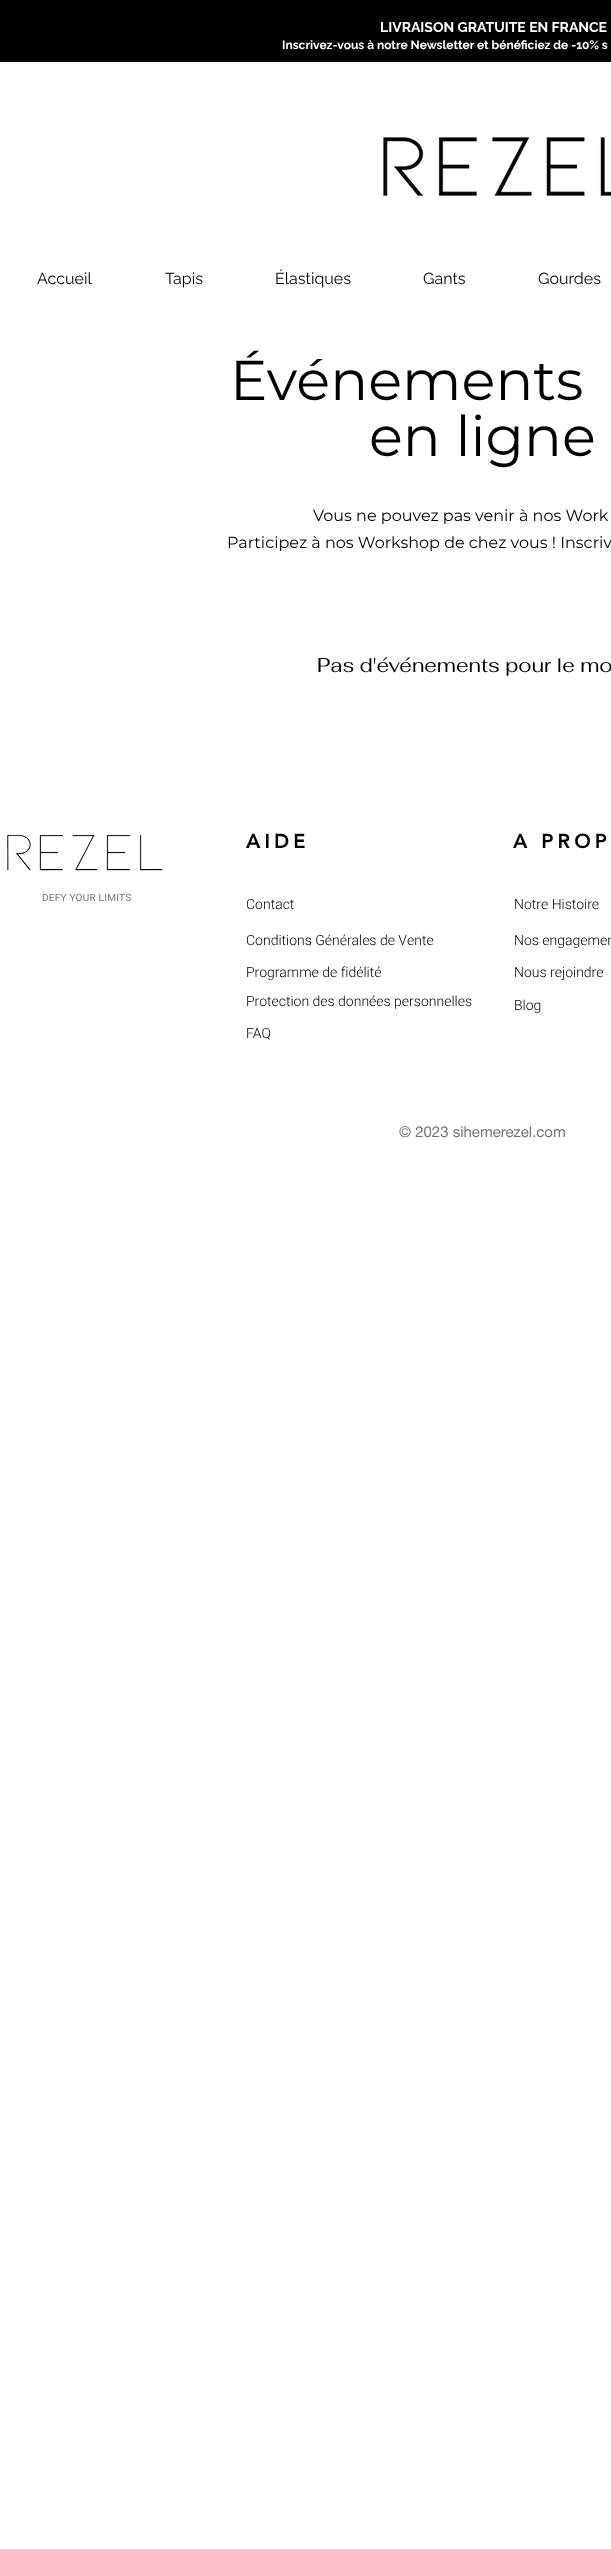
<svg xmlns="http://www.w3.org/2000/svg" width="611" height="2549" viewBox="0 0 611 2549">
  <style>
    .t1 { font: bold 14px Raleway; fill: #fff; }
    .t2 { font: bold 12px Raleway; fill: #fff; }
    .t3 { font: 16px Raleway; fill: #000; }
    .t4 { font: 56px Montserrat; fill: #000; }
    .t5 { font: 16px Montserrat; fill: #000; }
    .t6 { font: 20px Fahkwang; fill: #000; }
    .t7 { font: 900 20px 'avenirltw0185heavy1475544'; letter-spacing: 4px; fill: #000; }
    .t8 { font: 300 14px Heebo; fill: #000; }
    .t9 { font: 10px Roboto; letter-spacing: 0.25px; fill: #757575; }
    .t10 { font: 15px helvetica neue; fill: #757575; }
  </style>
  <rect width="100%" height="100%" fill="#fff"/>
  <rect x="0" y="0" width="611" height="62" fill="#000"/>
  <text x="380" y="32" class="t1">LIVRAISON GRATUITE EN FRANCE</text>
  <text x="282" y="49" class="t2">Inscrivez-vous à notre Newsletter et bénéficiez de -10% s</text>
  <image x="382" y="137" width="229" height="59" href="images/1.png"/>
  <text x="37" y="284" class="t3">Accueil</text>
  <text x="165" y="284" class="t3">Tapis</text>
  <text x="275" y="284" class="t3">Élastiques</text>
  <text x="423" y="284" class="t3">Gants</text>
  <text x="538" y="284" class="t3">Gourdes</text>
  <text x="230" y="400" class="t4">Événements</text>
  <text x="369" y="456" class="t4">en ligne</text>
  <text x="313" y="521" class="t5">Vous ne pouvez pas venir à nos Work</text>
  <text x="227" y="548" class="t5">Participez à nos Workshop de chez vous ! Inscriv</text>
  <text x="317" y="672" class="t6">Pas d'événements pour le mo</text>
  <image x="7" y="834" width="156" height="37" href="images/2.png"/>
  <text x="246" y="848" class="t7">AIDE</text>
  <text x="246" y="909" class="t8">Contact</text>
  <text x="246" y="945" class="t8">Conditions Générales de Vente</text>
  <text x="246" y="977" class="t8">Programme de fidélité</text>
  <text x="246" y="1006" class="t8">Protection des données personnelles</text>
  <text x="246" y="1038" class="t8">FAQ</text>
  <text x="513" y="848" class="t7">A PROP</text>
  <text x="514" y="909" class="t8">Notre Histoire</text>
  <text x="514" y="945" class="t8">Nos engagemen</text>
  <text x="514" y="977" class="t8">Nous rejoindre</text>
  <text x="42" y="901" class="t9">DEFY YOUR LIMITS</text>
  <text x="514" y="1010" class="t8">Blog</text>
  <text x="399" y="1137" class="t10">© 2023 sihemerezel.com</text>
</svg>
